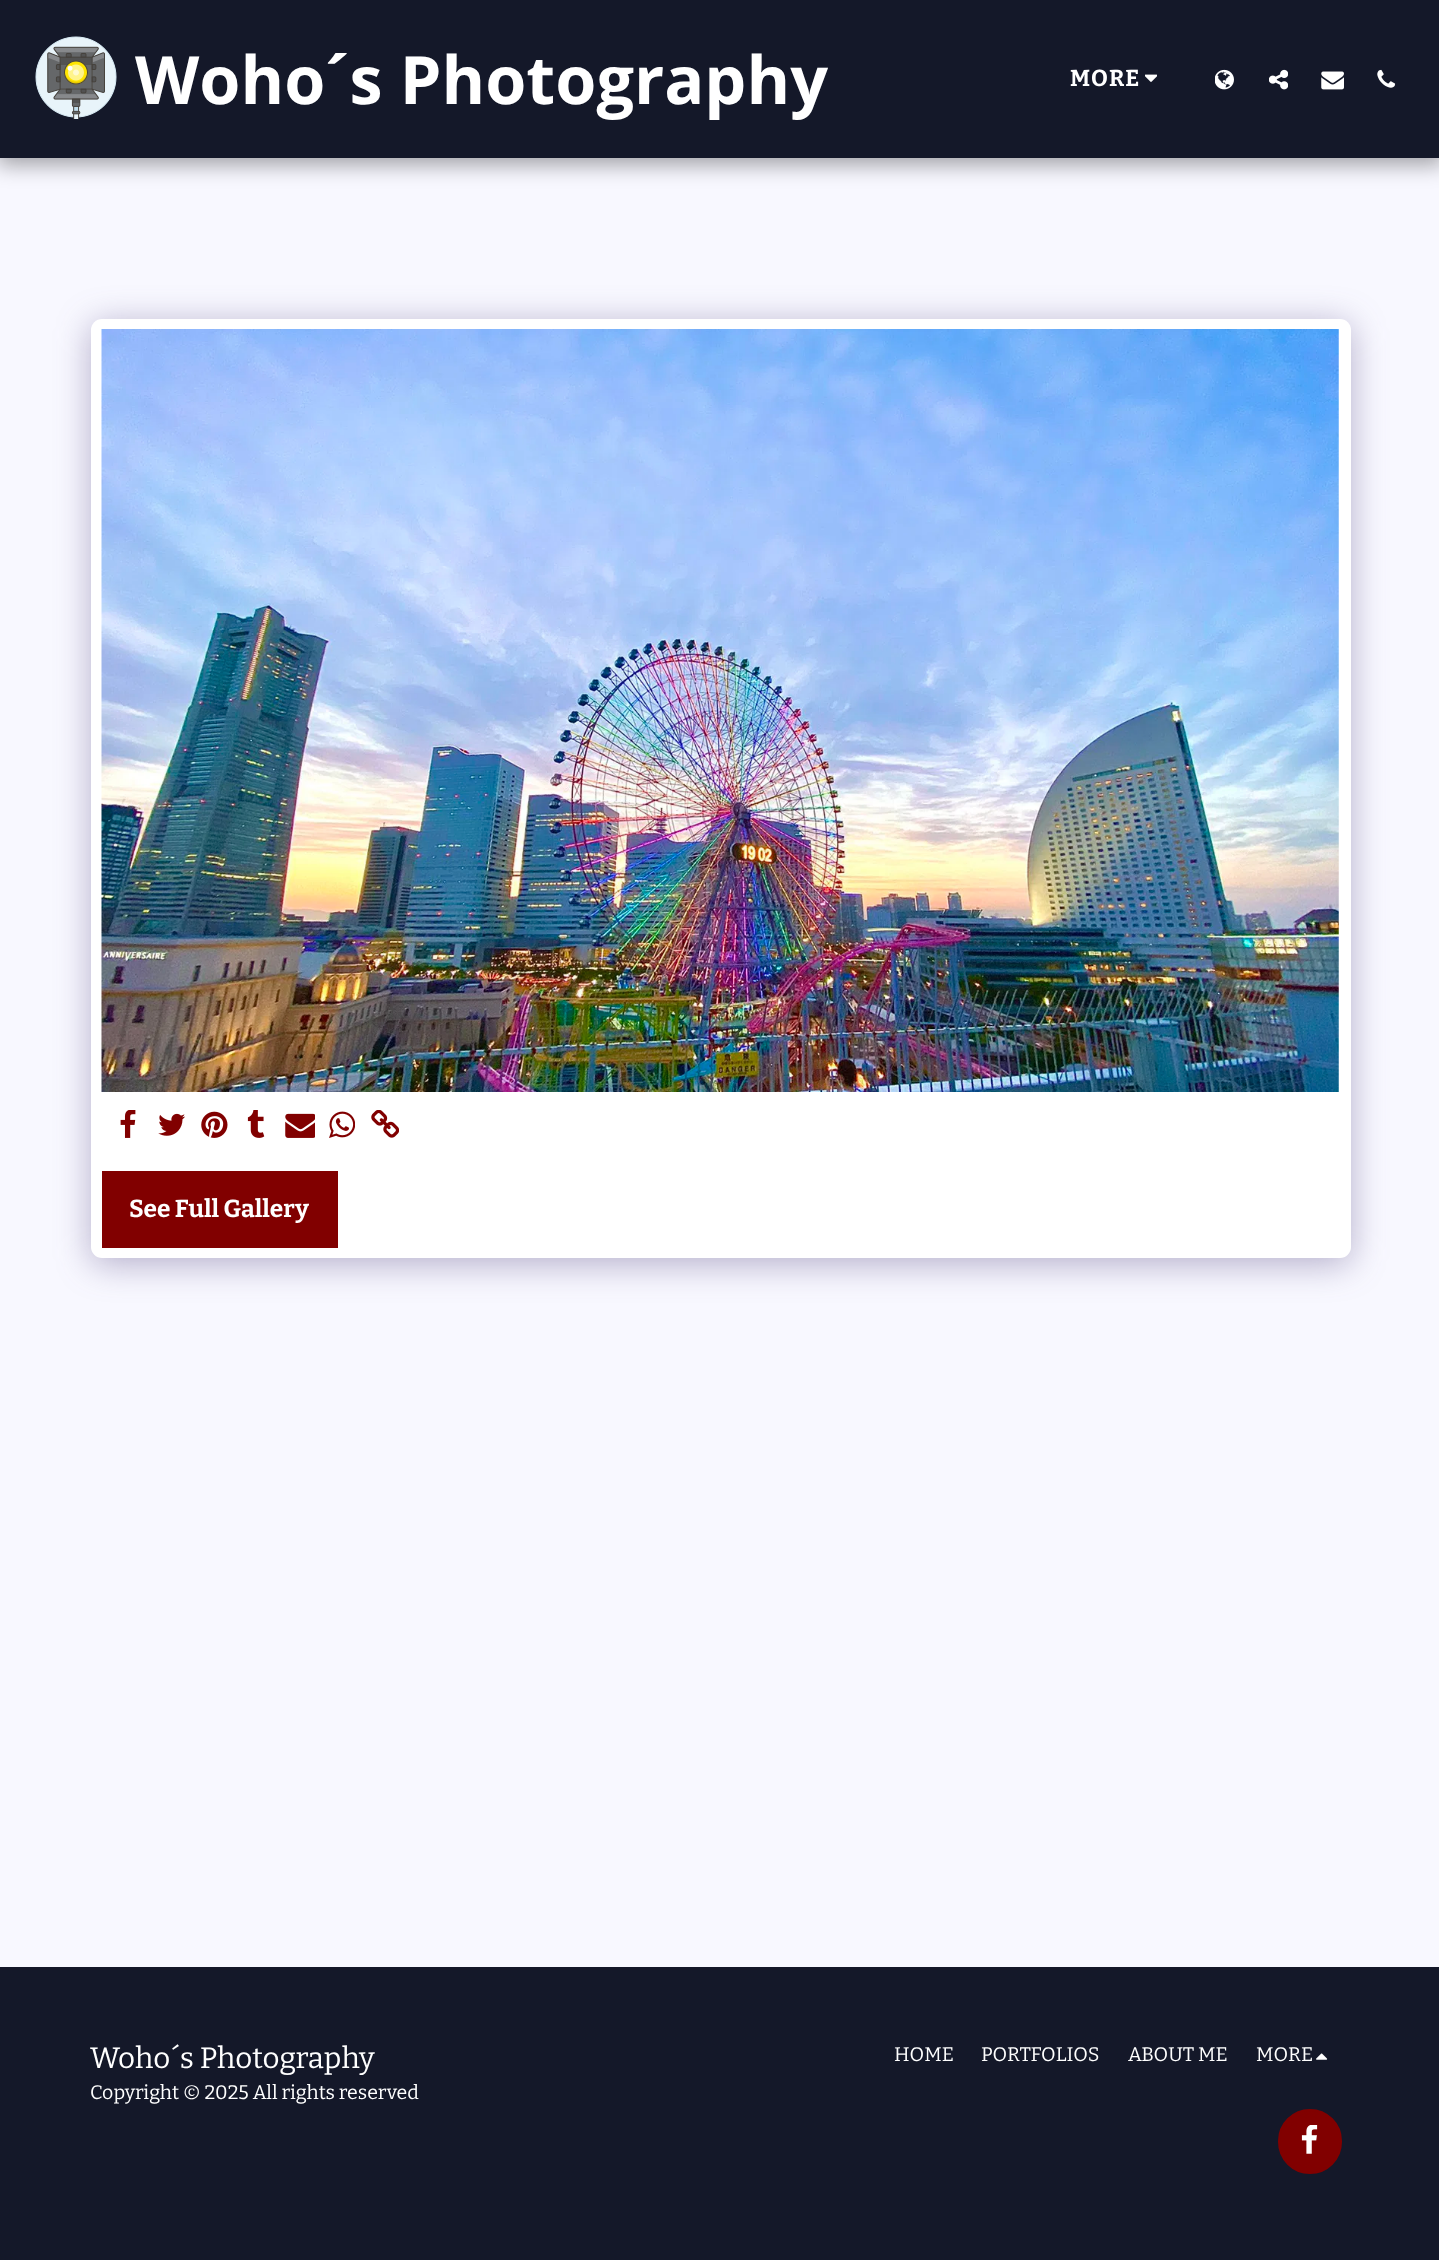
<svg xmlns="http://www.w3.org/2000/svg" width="1439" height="2260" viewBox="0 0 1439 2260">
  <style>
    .t1 { font: bold 66.5px Open Sans; fill: #fff; }
    .t2 { font: bold 23px Bitter; letter-spacing: 1px; fill: #fff; }
    .t3 { font: bold 24.5px Bitter; fill: #fff; }
    .t4 { font: 29.5px Bitter; fill: #fff; }
    .t5 { font: 19.6px Bitter; fill: #fff; }
  </style>
  <rect width="100%" height="100%" fill="#f8f8ff"/>
  <rect x="-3" y="0" width="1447" height="165" fill="#00000059" filter="blur(10.5px)"/>
  <rect x="0" y="0" width="1439" height="158" fill="#141829"/>
  <image x="35" y="36" width="82" height="84" href="images/1.png"/>
  <text x="135" y="104" class="t1">Woho´s Photography</text>
  <text x="1070" y="86" class="t2">MORE</text>
  <image x="1145" y="74" width="12" height="8" href="images/2.png"/>
  <image x="1215" y="69" width="19" height="21" href="images/3.png"/>
  <image x="1269" y="69" width="19" height="21" href="images/4.png"/>
  <image x="1321" y="71" width="23" height="19" href="images/5.png"/>
  <image x="1377" y="69" width="19" height="19" href="images/6.png"/>
  <rect x="91" y="324" width="1260" height="940" rx="11" fill="#4d3f7a66" filter="blur(17.5px)"/>
  <rect x="91" y="319" width="1260" height="939" rx="11" fill="#fff"/>
  <image x="101" y="329" width="1238" height="763" href="images/7.png"/>
  <image x="120" y="1110" width="16" height="28" href="images/8.png"/>
  <image x="158" y="1113" width="27" height="23" href="images/9.png"/>
  <image x="201" y="1111" width="27" height="27" href="images/10.png"/>
  <image x="247" y="1110" width="18" height="28" href="images/11.png"/>
  <image x="285" y="1113" width="30" height="25" href="images/12.png"/>
  <image x="329" y="1111" width="26" height="27" href="images/13.png"/>
  <image x="371" y="1110" width="28" height="28" href="images/14.png"/>
  <rect x="102" y="1171" width="236" height="77" fill="#810000"/>
  <text x="129" y="1217" class="t3">See Full Gallery</text>
  <rect x="0" y="1967" width="1439" height="293" fill="#141829"/>
  <text x="90" y="2068" class="t4">Woho´s Photography</text>
  <text x="90" y="2099" class="t5">Copyright © 2025 All rights reserved</text>
  <text x="894" y="2061" class="t5">HOME</text>
  <text x="981" y="2061" class="t5">PORTFOLIOS</text>
  <text x="1128" y="2061" class="t5">ABOUT ME</text>
  <text x="1256" y="2061" class="t5">MORE</text>
  <image x="1316" y="2053" width="12" height="7" href="images/15.png"/>
  <rect x="1279" y="2110" width="62" height="63" rx="31" fill="#810000" stroke="#810000" stroke-width="2"/>
  <image x="1301" y="2125" width="17" height="29" href="images/16.png"/>
</svg>
